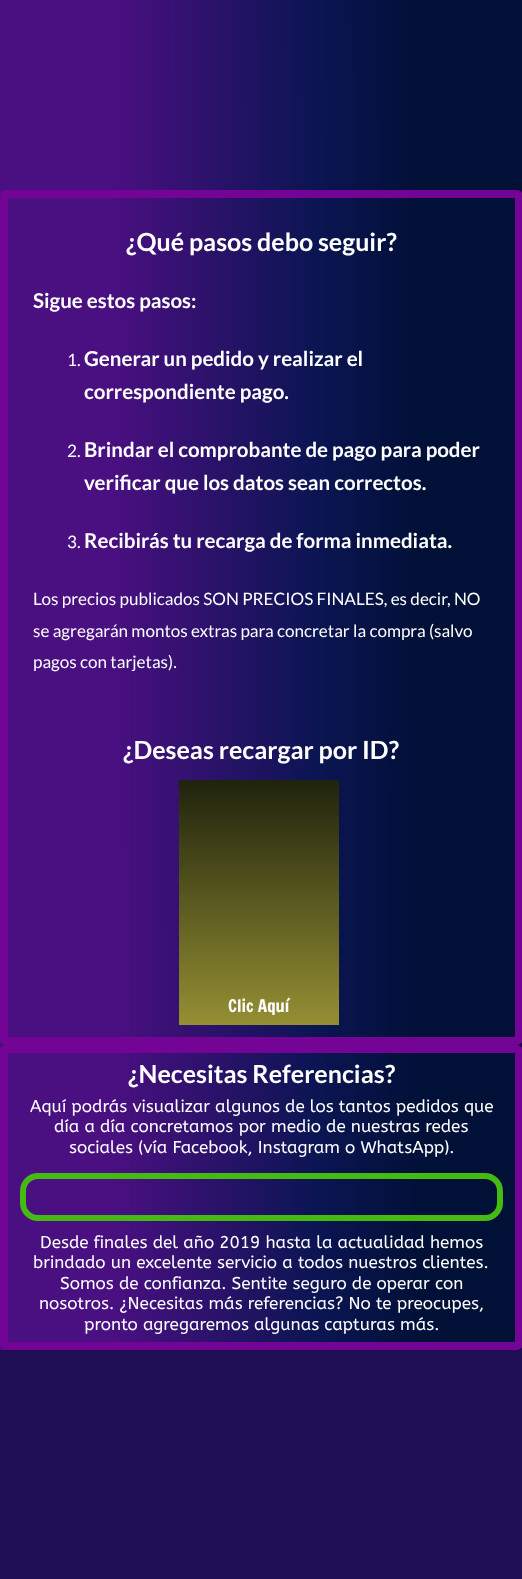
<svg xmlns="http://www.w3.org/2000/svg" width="522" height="1579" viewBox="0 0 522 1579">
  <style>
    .t1 { font: bold 25px Lato; fill: #fff; }
    .t2 { font: bold 20.5px Lato; fill: #fff; }
    .t3 { font: 17.1px Lato; fill: #fff; }
    .t4 { font: 17.1px Francois One; fill: #fff; }
    .t5 { font: 17.1px ABeeZee; fill: #fff; }
  </style>
  <defs>
    <linearGradient id="g1" gradientUnits="userSpaceOnUse" x1="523" y1="-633" x2="0" y2="-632"><stop offset="0.2" stop-color="#011037"/><stop offset="0.4" stop-color="#0b1553"/><stop offset="0.79" stop-color="#4a0f81"/></linearGradient>
    <linearGradient id="g2" gradientUnits="userSpaceOnUse" x1="259" y1="780" x2="259" y2="1025"><stop offset="0" stop-color="#1f230c"/><stop offset="1" stop-color="#958f33"/></linearGradient>
  </defs>
  <rect width="100%" height="100%" fill="#fff"/>
  <rect x="0" y="0" width="522" height="1350" fill="url(#g1)"/>
  <rect x="4" y="194" width="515" height="847" rx="2" fill="none" stroke="#730496" stroke-width="8"/>
  <text x="126" y="251" class="t1">¿Qué pasos debo seguir?</text>
  <text x="33" y="308" class="t2">Sigue estos pasos:</text>
  <text x="67" y="366" class="t3">1.</text>
  <text x="84" y="366" class="t2">Generar un pedido y realizar el</text>
  <text x="84" y="399" class="t2">correspondiente pago.</text>
  <text x="67" y="457" class="t3">2.</text>
  <text x="84" y="457" class="t2">Brindar el comprobante de pago para poder</text>
  <text x="84" y="490" class="t2">verificar que los datos sean correctos.</text>
  <text x="67" y="548" class="t3">3.</text>
  <text x="84" y="548" class="t2">Recibirás tu recarga de forma inmediata.</text>
  <text x="33" y="605" class="t3">Los precios publicados SON PRECIOS FINALES, es decir, NO</text>
  <text x="33" y="637" class="t3">se agregarán montos extras para concretar la compra (salvo</text>
  <text x="33" y="668" class="t3">pagos con tarjetas).</text>
  <text x="123" y="759" class="t1">¿Deseas recargar por ID?</text>
  <rect x="179" y="780" width="160" height="245" fill="url(#g2)"/>
  <text x="228" y="1012" class="t4">Clic Aquí</text>
  <rect x="4" y="1049" width="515" height="297" rx="2" fill="none" stroke="#730496" stroke-width="8"/>
  <text x="128" y="1083" class="t1">¿Necesitas Referencias?</text>
  <text x="30" y="1112" class="t5">Aquí podrás visualizar algunos de los tantos pedidos que</text>
  <text x="54" y="1132" class="t5">día a día concretamos por medio de nuestras redes</text>
  <text x="69" y="1153" class="t5">sociales (vía Facebook, Instagram o WhatsApp).</text>
  <rect x="23" y="1176" width="477" height="42" rx="15" fill="none" stroke="#45ba12" stroke-width="6"/>
  <text x="40" y="1248" class="t5">Desde finales del año 2019 hasta la actualidad hemos</text>
  <text x="33" y="1268" class="t5">brindado un excelente servicio a todos nuestros clientes.</text>
  <text x="60" y="1289" class="t5">Somos de confianza. Sentite seguro de operar con</text>
  <text x="39" y="1309" class="t5">nosotros. ¿Necesitas más referencias? No te preocupes,</text>
  <text x="84" y="1330" class="t5">pronto agregaremos algunas capturas más.</text>
  <rect x="0" y="1350" width="522" height="229" fill="#1f0d56"/>
</svg>
